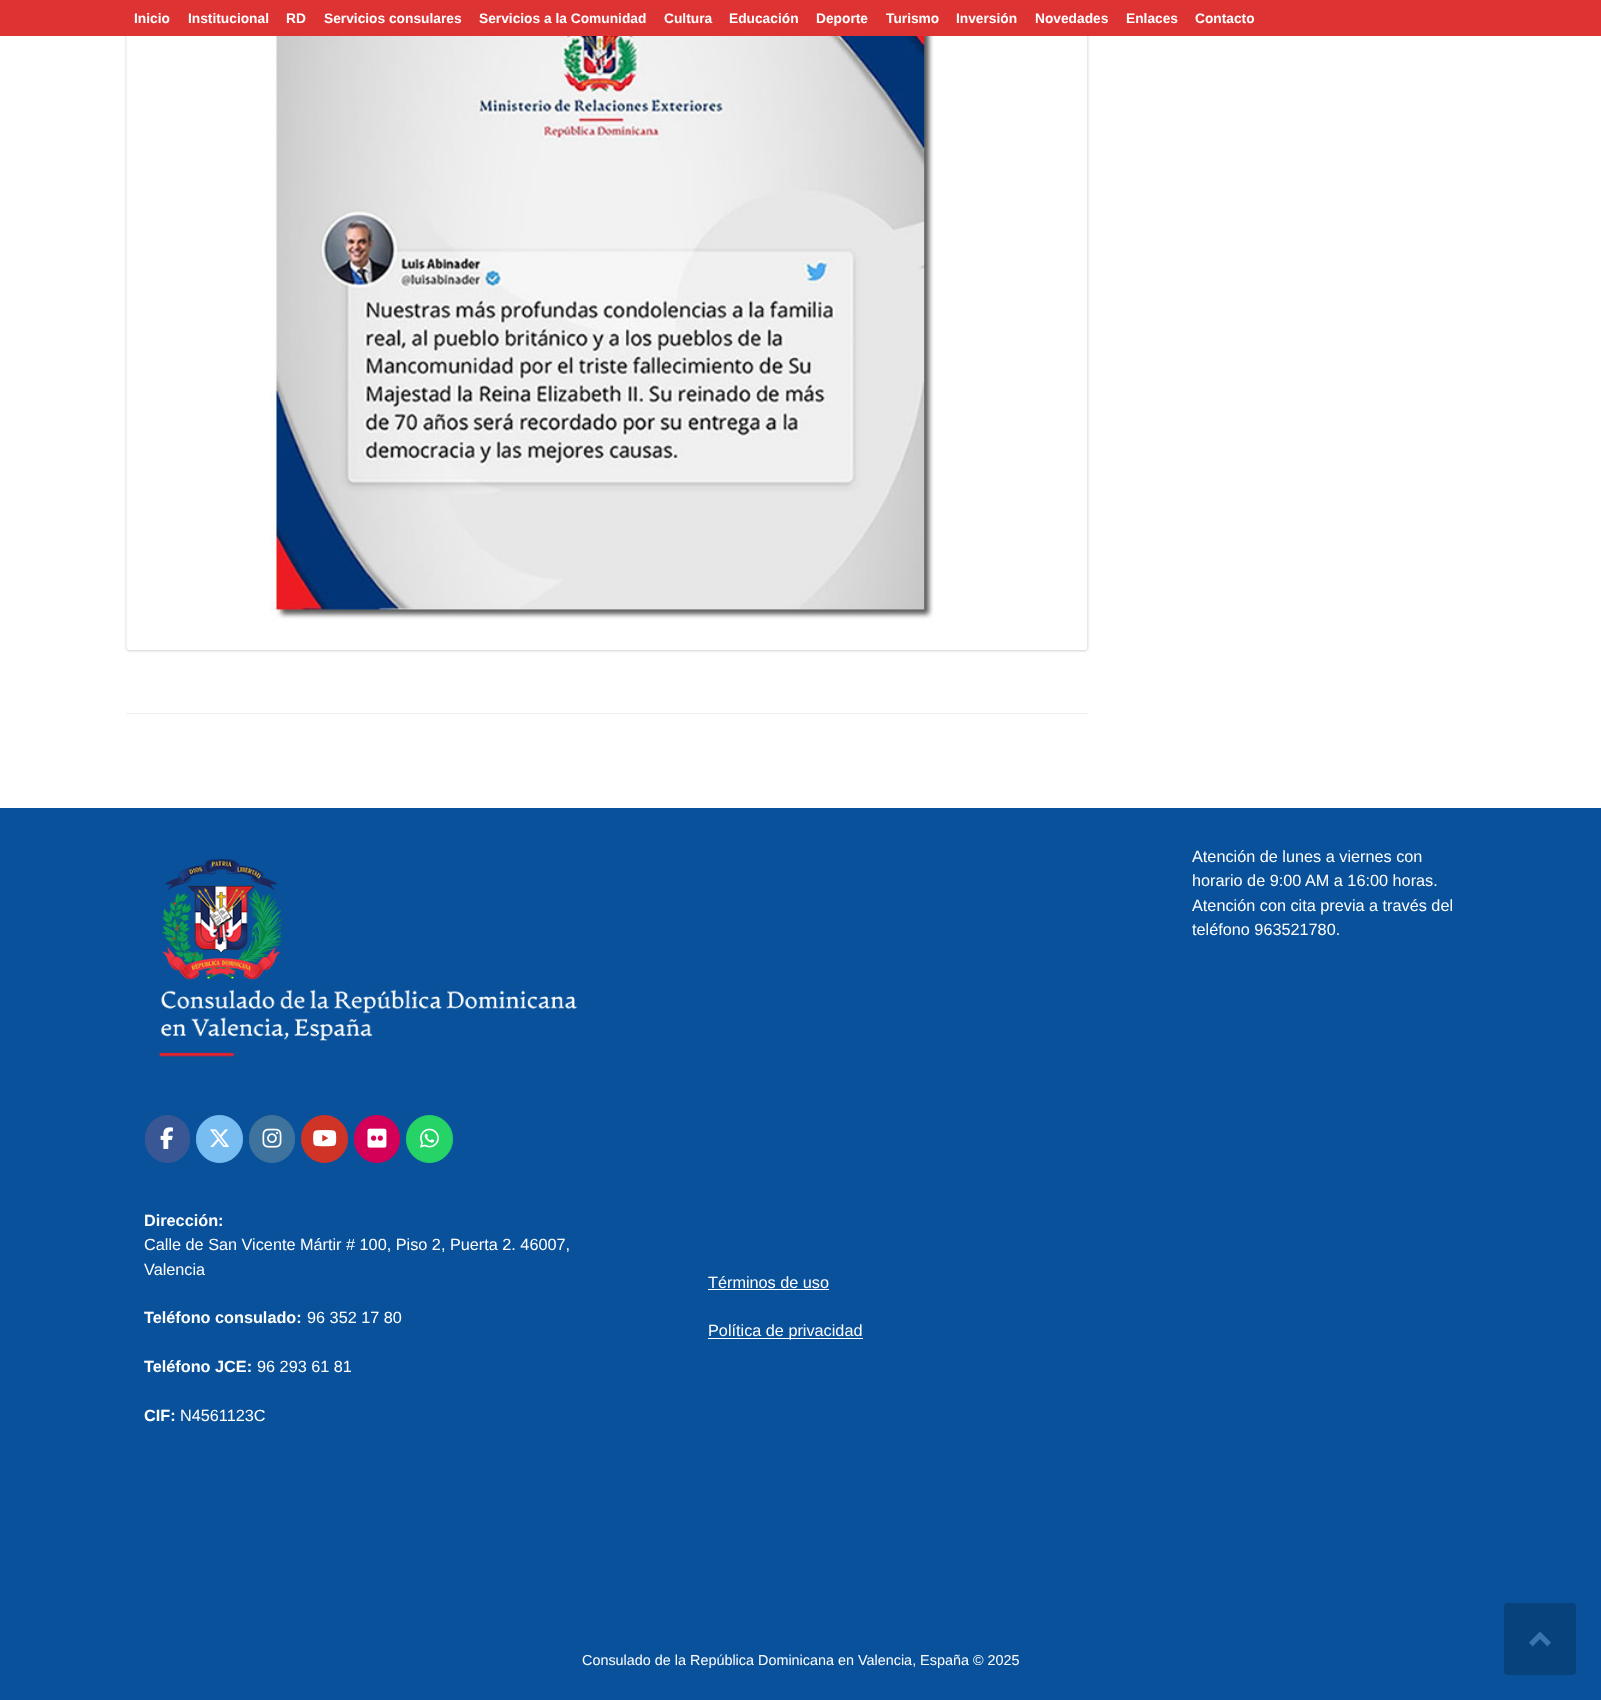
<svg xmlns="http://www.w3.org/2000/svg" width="1601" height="1700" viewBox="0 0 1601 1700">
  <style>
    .t1 { font: bold 13.75px Liberation Sans; fill: #fff; }
    .t2 { font: 16.25px Liberation Sans; fill: #fff; }
    .t3 { font: bold 16.25px Liberation Sans; fill: #fff; }
    .t4 { font: 14.4px Liberation Sans; fill: #fff; }
  </style>
  <rect width="100%" height="100%" fill="#09529b"/>
  <rect x="0" y="36" width="1601" height="772" fill="#fff"/>
  <rect x="126" y="713" width="962" height="1" fill="#eee"/>
  <rect x="126" y="-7" width="962" height="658" rx="4" fill="#0000002e" filter="blur(1px)"/>
  <image x="126" y="36" width="962" height="614" href="images/1.png"/>
  <rect x="0" y="0" width="1601" height="36" fill="#d33"/>
  <text x="134" y="23" class="t1">Inicio</text>
  <text x="188" y="23" class="t1">Institucional</text>
  <text x="286" y="23" class="t1">RD</text>
  <text x="324" y="23" class="t1">Servicios consulares</text>
  <text x="479" y="23" class="t1">Servicios a la Comunidad</text>
  <text x="664" y="23" class="t1">Cultura</text>
  <text x="729" y="23" class="t1">Educación</text>
  <text x="816" y="23" class="t1">Deporte</text>
  <text x="886" y="23" class="t1">Turismo</text>
  <text x="956" y="23" class="t1">Inversión</text>
  <text x="1035" y="23" class="t1">Novedades</text>
  <text x="1126" y="23" class="t1">Enlaces</text>
  <text x="1195" y="23" class="t1">Contacto</text>
  <text x="1192" y="862" class="t2">Atención de lunes a viernes con</text>
  <text x="1192" y="886" class="t2">horario de 9:00 AM a 16:00 horas.</text>
  <text x="1192" y="911" class="t2">Atención con cita previa a través del</text>
  <text x="1192" y="935" class="t2">teléfono 963521780.</text>
  <image x="159" y="858" width="418" height="199" href="images/2.png"/>
  <rect x="145.5" y="1115.5" width="44" height="47" rx="22" fill="#3a5795" stroke="#3a5795"/>
  <image x="160" y="1127" width="13" height="22" href="images/3.png"/>
  <rect x="196.5" y="1115.5" width="46" height="47" rx="23" fill="#78bdf1" stroke="#78bdf1"/>
  <image x="210" y="1129" width="20" height="18" href="images/4.png"/>
  <rect x="249.5" y="1115.5" width="45" height="47" rx="22.5" fill="#3d739c" stroke="#3d739c"/>
  <image x="262" y="1128" width="20" height="20" href="images/5.png"/>
  <rect x="301.5" y="1115.5" width="46" height="47" rx="23" fill="#cf3427" stroke="#cf3427"/>
  <image x="313" y="1130" width="24" height="17" href="images/6.png"/>
  <rect x="354.5" y="1115.5" width="45" height="47" rx="22.5" fill="#d40057" stroke="#d40057"/>
  <image x="367" y="1128" width="20" height="20" href="images/7.png"/>
  <rect x="406.5" y="1115.5" width="46" height="47" rx="23" fill="#25d366" stroke="#25d366"/>
  <image x="420" y="1128" width="19" height="20" href="images/8.png"/>
  <text x="144" y="1226" class="t3">Dirección:</text>
  <text x="144" y="1250" class="t2">Calle de San Vicente Mártir # 100, Piso 2, Puerta 2. 46007,</text>
  <text x="144" y="1275" class="t2">Valencia</text>
  <text x="144" y="1323" class="t3">Teléfono consulado:</text>
  <text x="307" y="1323" class="t2">96 352 17 80</text>
  <text x="144" y="1372" class="t3">Teléfono JCE:</text>
  <text x="257" y="1372" class="t2">96 293 61 81</text>
  <text x="144" y="1421" class="t3">CIF:</text>
  <text x="180" y="1421" class="t2">N4561123C</text>
  <text x="708" y="1288" class="t2">Términos de uso</text>
  <rect x="708" y="1289" width="121" height="1" fill="#fff"/>
  <rect x="708" y="1338" width="155" height="1" fill="#fff"/>
  <text x="708" y="1336" class="t2">Política de privacidad</text>
  <text x="582" y="1665" class="t4">Consulado de la República Dominicana en Valencia, España © 2025</text>
  <rect x="1504" y="1603" width="72" height="72" rx="4" fill="#07427c"/>
  <path d="M1551 1642.5L1540 1631.5L1529 1642.5L1532.5 1646.5L1540 1639L1547.5 1646.5Z" fill="#3a75af"/>
</svg>
